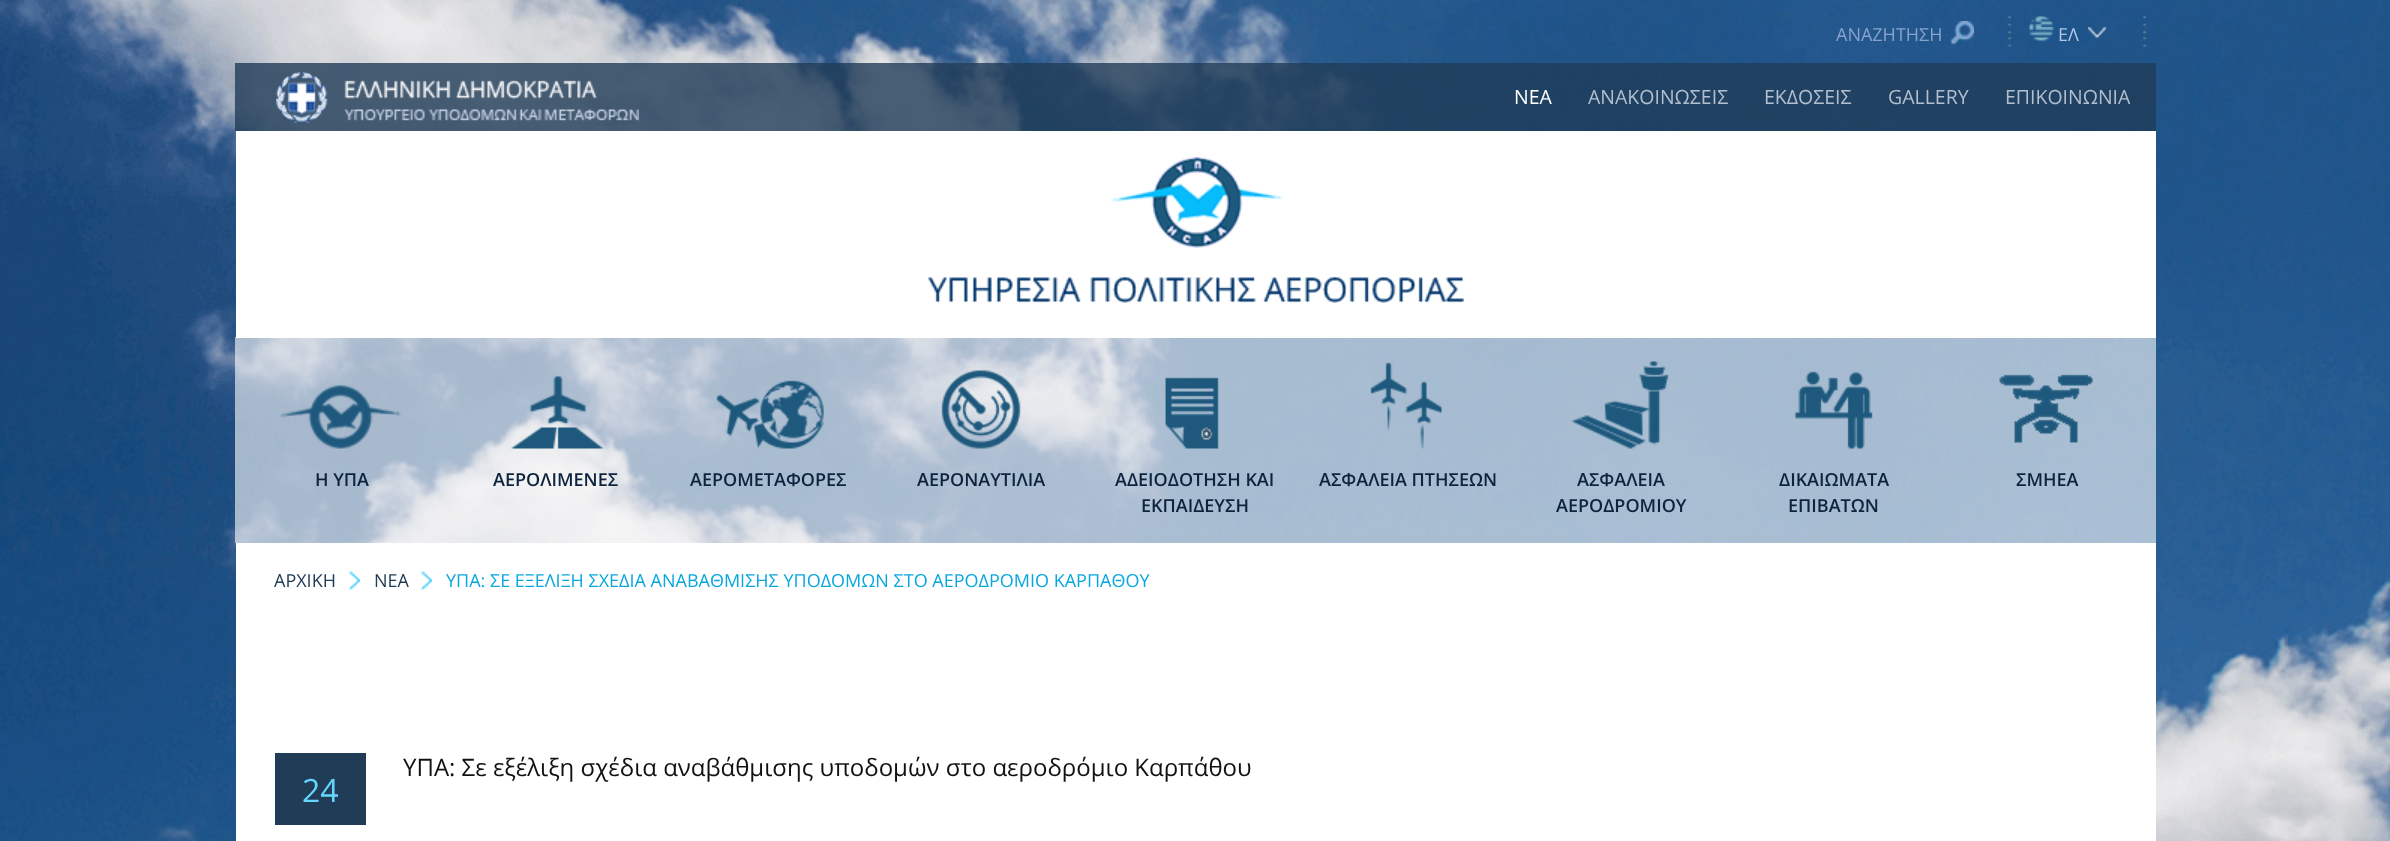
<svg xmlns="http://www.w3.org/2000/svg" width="2390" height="841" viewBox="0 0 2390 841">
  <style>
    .t1 { font: 18px Open Sans; fill: #89a2cd; }
    .t2 { font: 18px Open Sans; fill: #b4c6e4; }
    .t3 { font: 19.5px Open Sans; fill: #fff; }
    .t4 { font: 19.5px Open Sans; fill: #b2bfcf; }
    .t5 { font: 600 18px Open Sans; fill: #0e243e; }
    .t6 { font: 18px Open Sans; fill: #213c57; }
    .t7 { font: 18px Open Sans; fill: #08a7de; }
    .t8 { font: 24px Open Sans; fill: #111; }
    .t9 { font: 32px Open Sans; fill: #64d6fe; }
  </style>
  <rect width="100%" height="100%" fill="#fff"/>
  <image x="0" y="0" width="2390" height="841" href="images/1.png"/>
  <text x="1836" y="41" class="t1">ΑΝΑΖΗΤΗΣΗ</text>
  <image x="1950" y="21" width="24" height="24" href="images/2.png"/>
  <image x="2008" y="15" width="139" height="33" href="images/3.png"/>
  <image x="2088" y="27" width="18" height="11" href="images/4.png"/>
  <image x="2029" y="16" width="25" height="25" href="images/5.png"/>
  <text x="2058" y="41" class="t2">ΕΛ</text>
  <rect x="235" y="63" width="1921" height="68" fill="#203c57cc"/>
  <image x="276" y="72" width="363" height="51" href="images/6.png"/>
  <text x="1514" y="104" class="t3">ΝΕΑ</text>
  <text x="1588" y="104" class="t4">ΑΝΑΚΟΙΝΩΣΕΙΣ</text>
  <text x="1764" y="104" class="t4">ΕΚΔΟΣΕΙΣ</text>
  <text x="1888" y="104" class="t4">GALLERY</text>
  <text x="2005" y="104" class="t4">ΕΠΙΚΟΙΝΩΝΙΑ</text>
  <rect x="236" y="131" width="1920" height="207" fill="#fff"/>
  <image x="928" y="157" width="536" height="146" href="images/7.png"/>
  <rect x="235" y="337" width="1921" height="206" fill="#ffffff99"/>
  <image x="279" y="385" width="122" height="64" href="images/8.png"/>
  <text x="315" y="486" class="t5">Η ΥΠΑ</text>
  <image x="511" y="376" width="93" height="73" href="images/9.png"/>
  <text x="493" y="486" class="t5">ΑΕΡΟΛΙΜΕΝΕΣ</text>
  <image x="716" y="380" width="108" height="69" href="images/10.png"/>
  <text x="690" y="486" class="t5">ΑΕΡΟΜΕΤΑΦΟΡΕΣ</text>
  <image x="941" y="370" width="80" height="79" href="images/11.png"/>
  <text x="917" y="486" class="t5">ΑΕΡΟΝΑΥΤΙΛΙΑ</text>
  <image x="1165" y="377" width="54" height="72" href="images/12.png"/>
  <text x="1115" y="486" class="t5">ΑΔΕΙΟΔΟΤΗΣΗ ΚΑΙ</text>
  <text x="1141" y="512" class="t5">ΕΚΠΑΙΔΕΥΣΗ</text>
  <image x="1370" y="362" width="72" height="87" href="images/13.png"/>
  <text x="1319" y="486" class="t5">ΑΣΦΑΛΕΙΑ ΠΤΗΣΕΩΝ</text>
  <image x="1571" y="361" width="98" height="88" href="images/14.png"/>
  <text x="1577" y="486" class="t5">ΑΣΦΑΛΕΙΑ</text>
  <text x="1556" y="512" class="t5">ΑΕΡΟΔΡΟΜΙΟΥ</text>
  <image x="1795" y="371" width="78" height="78" href="images/15.png"/>
  <text x="1779" y="486" class="t5">ΔΙΚΑΙΩΜΑΤΑ</text>
  <text x="1788" y="512" class="t5">ΕΠΙΒΑΤΩΝ</text>
  <image x="1999" y="374" width="94" height="69" href="images/16.png"/>
  <text x="2016" y="486" class="t5">ΣΜΗΕΑ</text>
  <rect x="236" y="543" width="1920" height="298" fill="#fff"/>
  <text x="274" y="587" class="t6">ΑΡΧΙΚΗ</text>
  <image x="349" y="571" width="11" height="19" href="images/17.png"/>
  <text x="374" y="587" class="t6">ΝΕΑ</text>
  <image x="421" y="571" width="11" height="19" href="images/18.png"/>
  <text x="446" y="587" class="t7">ΥΠΑ: ΣΕ ΕΞΕΛΙΞΗ ΣΧΕΔΙΑ ΑΝΑΒΑΘΜΙΣΗΣ ΥΠΟΔΟΜΩΝ ΣΤΟ ΑΕΡΟΔΡΟΜΙΟ ΚΑΡΠΑΘΟΥ</text>
  <text x="403" y="776" class="t8">ΥΠΑ: Σε εξέλιξη σχέδια αναβάθμισης υποδομών στο αεροδρόμιο Καρπάθου</text>
  <rect x="275" y="753" width="91" height="72" fill="#213c57"/>
  <text x="302" y="802" class="t9">24</text>
</svg>
